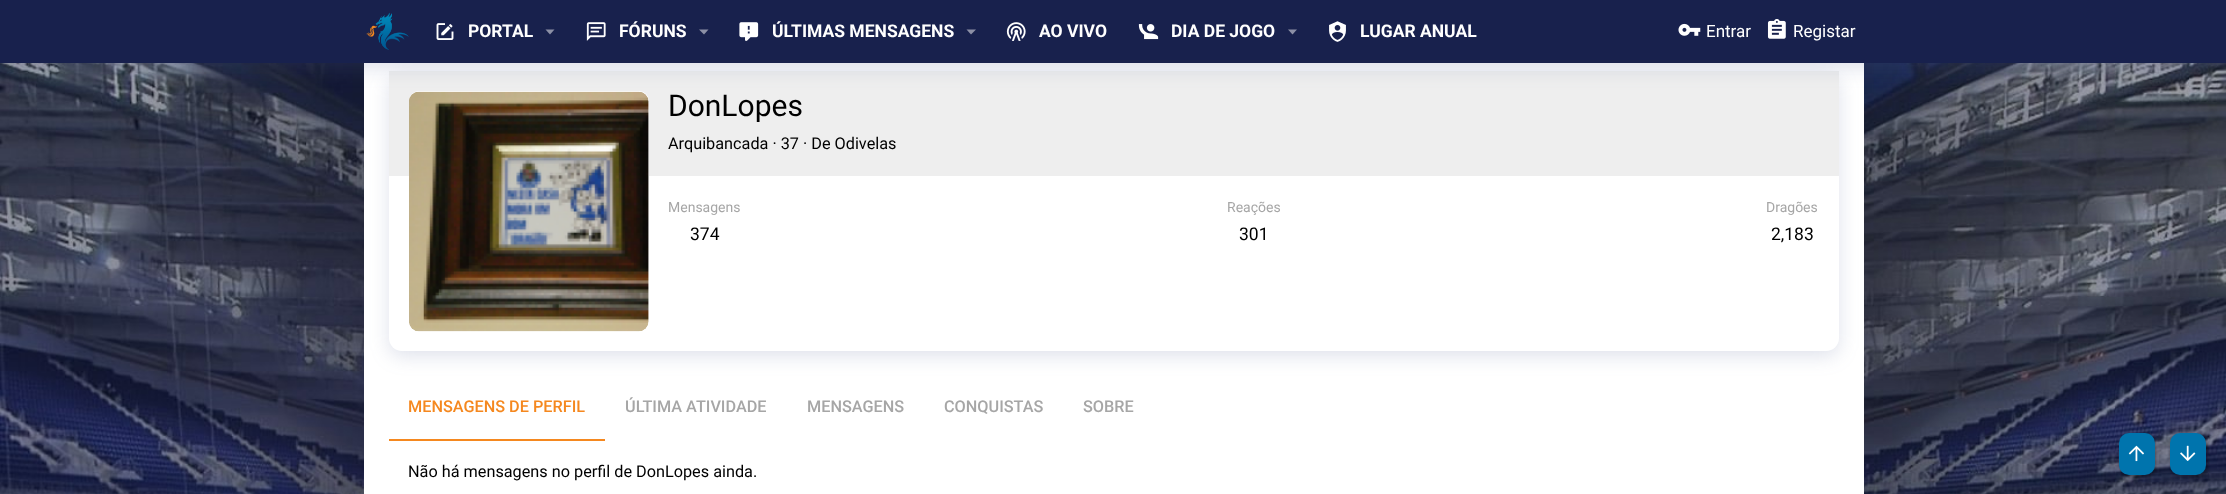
<svg xmlns="http://www.w3.org/2000/svg" width="2226" height="494" viewBox="0 0 2226 494">
  <style>
    .t1 { font: bold 17.5px Roboto; fill: #fff; }
    .t2 { font: 17px Roboto; fill: #fff; }
    .t3 { font: 30px Roboto; fill: #000; }
    .t4 { font: 16.25px Roboto; fill: #000; }
    .t5 { font: 14px Roboto; fill: #a6a6a6; }
    .t6 { font: 17.5px Roboto; fill: #000; }
    .t7 { font: 500 16.25px Roboto; fill: #f5881f; }
    .t8 { font: 500 16.25px Roboto; fill: #a6a6a6; }
  </style>
  <defs>
    <clipPath id="clip1"><path d="M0 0H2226V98H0ZM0 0H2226V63H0Z" clip-rule="evenodd"/></clipPath>
  </defs>
  <rect width="100%" height="100%" fill="#fff"/>
  <image x="0" y="63" width="2226" height="431" href="images/1.png"/>
  <rect x="364" y="63" width="1500" height="431" fill="#fff"/>
  <rect x="389" y="76" width="1450" height="280" rx="13" fill="#586a9933" filter="blur(9.5px)"/>
  <rect x="0" y="0" width="2226" height="63" fill="#18214d"/>
  <rect x="389" y="71" width="1450" height="280" rx="13" fill="#fff"/>
  <rect x="389" y="71" width="1450" height="105" fill="#eee"/>
  <rect x="409" y="91" width="240" height="240" rx="10" fill="#fff"/>
  <image x="409" y="91" width="240" height="241" href="images/11.png"/>
  <g clip-path="url(#clip1)">
    <rect x="0" y="5" width="2226" height="63" fill="#586a9933" filter="blur(9.5px)"/>
  </g>
  <image x="366" y="12" width="43" height="38" href="images/2.png"/>
  <image x="436" y="23" width="18" height="17" href="images/3.png"/>
  <text x="468" y="37" class="t1">PORTAL</text>
  <path d="M545.5 29.5L550 34.5L554.5 29.5Z" fill="#8c90a6"/>
  <image x="586" y="22" width="20" height="19" href="images/4.png"/>
  <text x="619" y="37" class="t1">FÓRUNS</text>
  <path d="M699 29.5L704 34.5L708.5 29.5Z" fill="#8c90a6"/>
  <image x="739" y="22" width="20" height="19" href="images/5.png"/>
  <text x="772" y="37" class="t1">ÚLTIMAS MENSAGENS</text>
  <path d="M966.5 29.5L971 34.5L976 29.5Z" fill="#8c90a6"/>
  <image x="1006" y="22" width="20" height="19" href="images/6.png"/>
  <text x="1039" y="37" class="t1">AO VIVO</text>
  <image x="1138" y="24" width="21" height="16" href="images/7.png"/>
  <text x="1171" y="37" class="t1">DIA DE JOGO</text>
  <path d="M1288 29.5L1292.5 34.5L1297 29.5Z" fill="#8c90a6"/>
  <image x="1329" y="21" width="17" height="21" href="images/8.png"/>
  <text x="1360" y="37" class="t1">LUGAR ANUAL</text>
  <image x="1678" y="23" width="23" height="13" href="images/9.png"/>
  <text x="1706" y="37" class="t2">Entrar</text>
  <image x="1767" y="19" width="19" height="20" href="images/10.png"/>
  <text x="1793" y="37" class="t2">Registar</text>
  <text x="668" y="116" class="t3">DonLopes</text>
  <text x="668" y="149" class="t4">Arquibancada · 37 · De Odivelas</text>
  <text x="668" y="212" class="t5">Mensagens</text>
  <text x="690" y="240" class="t6">374</text>
  <text x="1227" y="212" class="t5">Reações</text>
  <text x="1239" y="240" class="t6">301</text>
  <text x="1766" y="212" class="t5">Dragões</text>
  <text x="1771" y="240" class="t6">2,183</text>
  <rect x="389" y="439" width="216" height="2" fill="#f5881f"/>
  <text x="408" y="412" class="t7">MENSAGENS DE PERFIL</text>
  <text x="625" y="412" class="t8">ÚLTIMA ATIVIDADE</text>
  <text x="807" y="412" class="t8">MENSAGENS</text>
  <text x="944" y="412" class="t8">CONQUISTAS</text>
  <text x="1083" y="412" class="t8">SOBRE</text>
  <text x="408" y="477" class="t4">Não há mensagens no perfil de DonLopes ainda.</text>
  <rect x="2120" y="435" width="36" height="43" rx="10" fill="#00000040" filter="blur(1px)"/>
  <rect x="2119" y="433" width="36" height="42" rx="10" fill="#0074ad"/>
  <image x="2128" y="445" width="16" height="17" href="images/12.png"/>
  <rect x="2171" y="435" width="37" height="43" rx="10" fill="#00000040" filter="blur(1px)"/>
  <rect x="2170" y="433" width="36" height="42" rx="10" fill="#0074ad"/>
  <image x="2180" y="445" width="16" height="16" href="images/13.png"/>
</svg>
